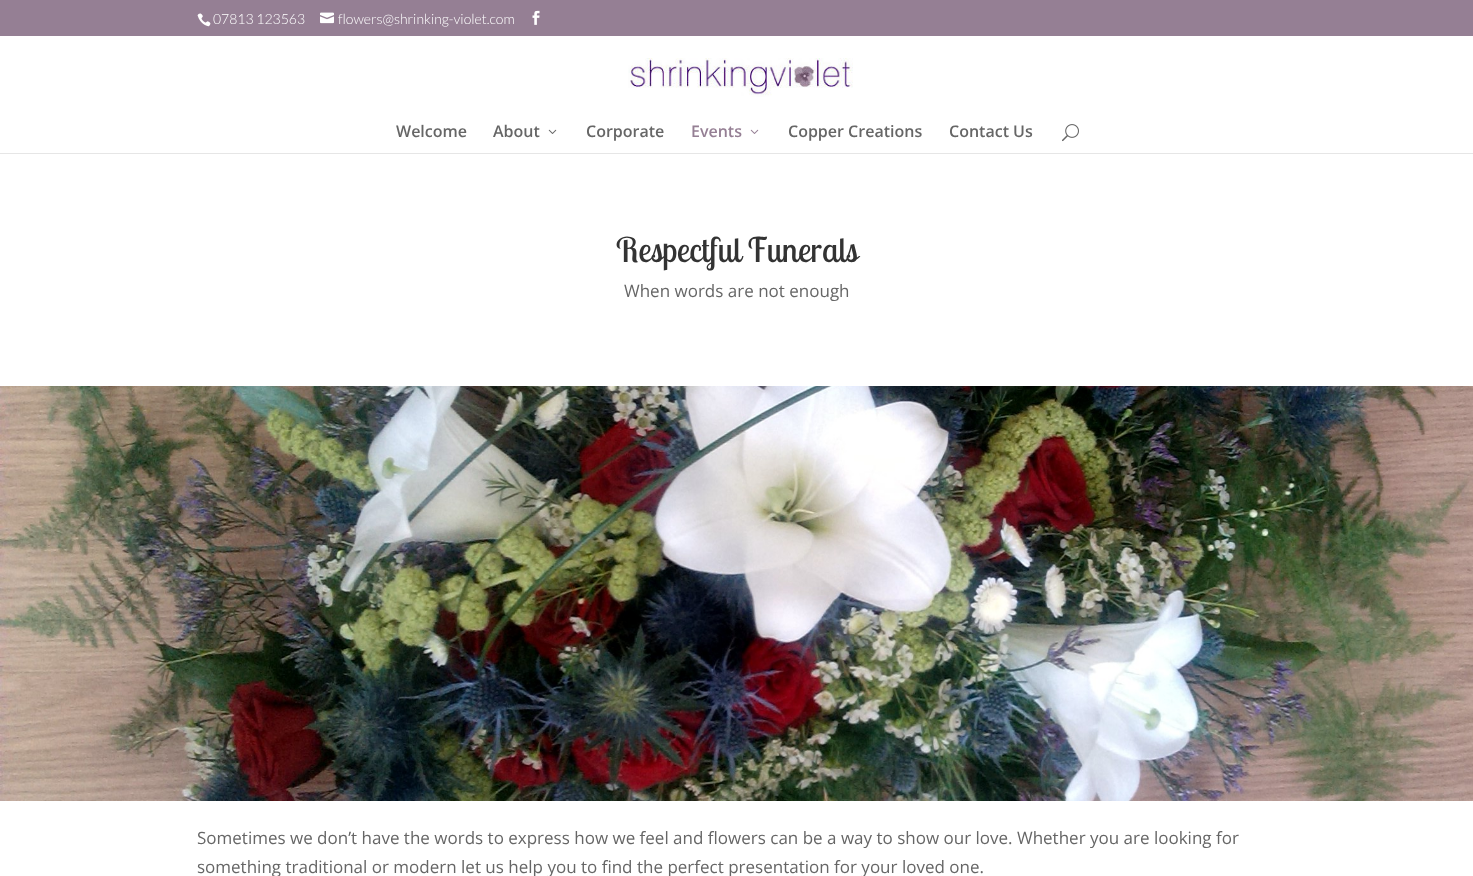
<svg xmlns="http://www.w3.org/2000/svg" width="1473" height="876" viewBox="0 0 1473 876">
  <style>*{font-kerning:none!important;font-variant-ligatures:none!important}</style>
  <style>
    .t1 { font: 300 14px Lato; fill: #fff; }
    .t2 { font: 600 16px Open Sans; fill: #666; }
    .t3 { font: 600 16px Open Sans; fill: #957f94; }
    .t4 { font: 34px Lobster Two; fill: #333; }
    .t5 { font: 17px Open Sans; fill: #666; }
  </style>
  <rect width="100%" height="100%" fill="#fff"/>
  <rect x="0" y="0" width="1473" height="36" fill="#957f94"/>
  <image x="197" y="13" width="14" height="14" href="images/1.png"/>
  <text x="213" y="24" class="t1">07813 123563</text>
  <image x="320" y="12" width="14" height="12" href="images/2.png"/>
  <text x="338" y="24" class="t1">flowers@shrinking-violet.com</text>
  <image x="532" y="10" width="8" height="15" href="images/3.png"/>
  <rect x="0" y="153" width="1473" height="1" fill="#e6e6e6"/>
  <image x="628" y="58" width="225" height="39" href="images/4.png"/>
  <text x="396" y="137" class="t2">Welcome</text>
  <text x="493" y="137" class="t2">About</text>
  <image x="548" y="129" width="9" height="5" href="images/5.png"/>
  <text x="586" y="137" class="t2">Corporate</text>
  <text x="691" y="137" class="t3">Events</text>
  <image x="750" y="129" width="9" height="5" href="images/6.png"/>
  <text x="788" y="137" class="t2">Copper Creations</text>
  <text x="949" y="137" class="t2">Contact Us</text>
  <image x="1062" y="124" width="17" height="18" href="images/7.png"/>
  <text x="616" y="262" class="t4">Respectful Funerals</text>
  <text x="624" y="297" class="t5">When words are not enough</text>
  <image x="0" y="386" width="1473" height="415" href="images/8.png"/>
  <text x="197" y="844" class="t5">Sometimes we don’t have the words to express how we feel and flowers can be a way to show our love. Whether you are looking for</text>
  <text x="197" y="873" class="t5">something traditional or modern let us help you to find the perfect presentation for your loved one.</text>
</svg>
